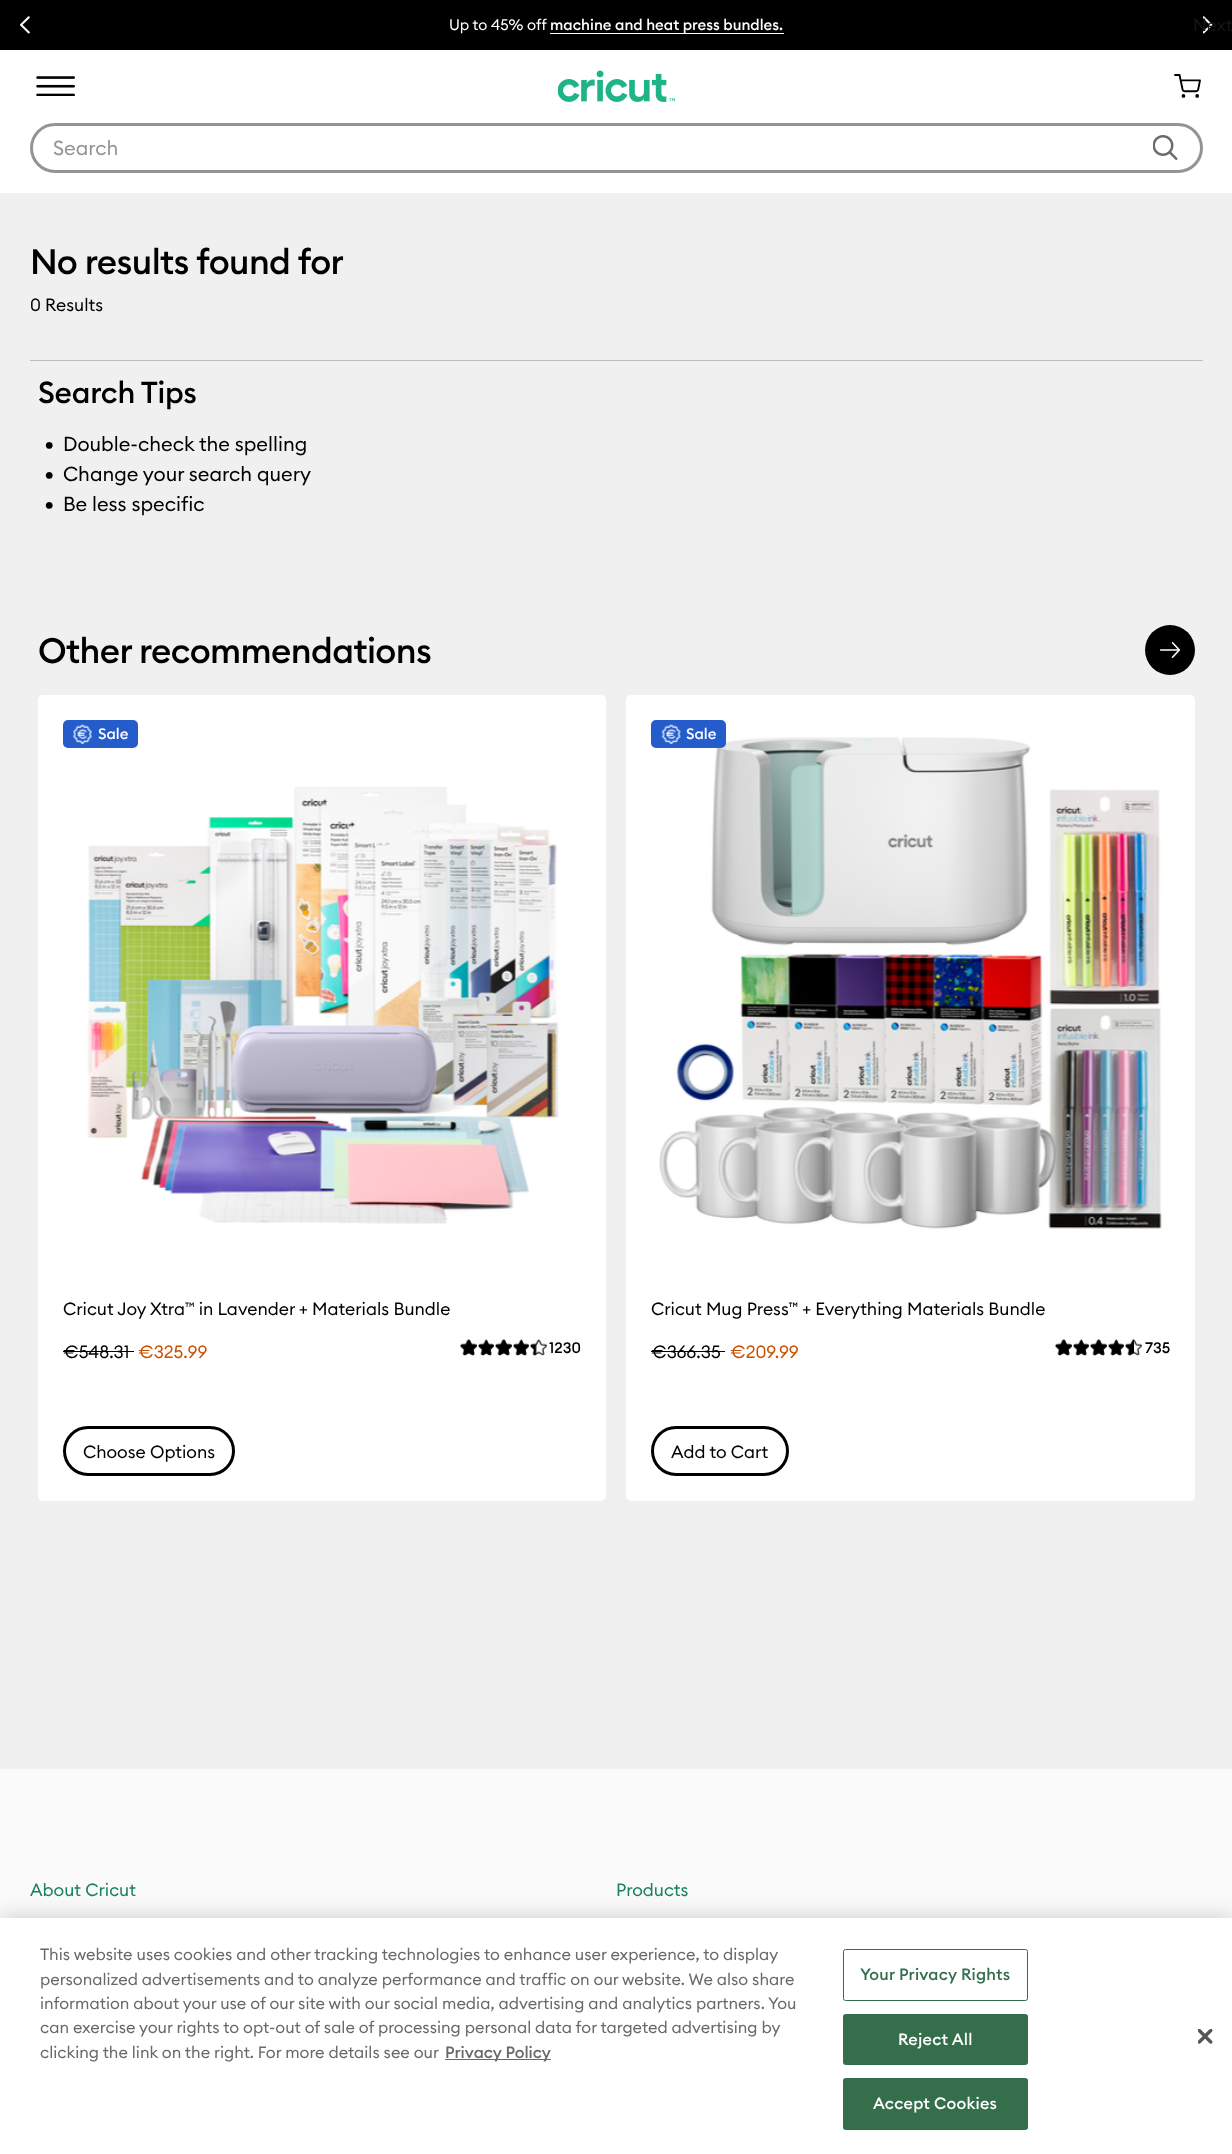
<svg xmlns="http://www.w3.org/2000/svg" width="1232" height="2154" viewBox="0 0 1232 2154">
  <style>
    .t1 { font: 15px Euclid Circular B; fill: #fff; }
    .t2 { font: 500 15px Euclid Circular B; fill: #fff; }
    .t3 { font: 17.5px Euclid Circular B; fill: #151515; }
    .t4 { font: 20px Euclid Circular B; fill: #949494; }
    .t5 { font: 500 35px Euclid Circular B; letter-spacing: -0.6px; fill: #000; }
    .t6 { font: 17.5px Euclid Circular B; fill: #000; }
    .t7 { font: 500 30px Euclid Circular B; letter-spacing: -0.25px; fill: #000; }
    .t8 { font: 25px Euclid Circular B; fill: #000; }
    .t9 { font: 20px Euclid Circular B; fill: #000; }
    .t10 { font: 17.5px Euclid Circular B; fill: #c75001; }
    .t11 { font: 500 15px Euclid Circular B; fill: #000; }
    .t12 { font: 17.5px Euclid Circular B; fill: #1a8163; }
    .t13 { font: 16.25px Euclid Circular B; fill: #696969; }
    .t14 { font: 500 16.25px Euclid Circular B; fill: #696969; }
    .t15 { font: 500 16.25px Euclid Circular B; letter-spacing: 0.2px; fill: #346e4a; }
    .t16 { font: 500 16.25px Euclid Circular B; letter-spacing: 0.2px; fill: #fff; }
  </style>
  <rect width="100%" height="100%" fill="#f0f0f0"/>
  <rect x="0" y="50" width="1232" height="143" fill="#fff"/>
  <rect x="0" y="0" width="1232" height="50" fill="#000"/>
  <image x="20" y="16" width="10" height="18" href="images/1.png"/>
  <text x="449" y="30" class="t1">Up to 45% off</text>
  <rect x="550" y="33" width="234" height="1" fill="#fff"/>
  <text x="550" y="30" class="t2">machine and heat press bundles.</text>
  <image x="1203" y="16" width="10" height="18" href="images/2.png"/>
  <text x="1193" y="31" class="t3">Next</text>
  <image x="36" y="76" width="39" height="20" href="images/3.png"/>
  <image x="558" y="70" width="117" height="32" href="images/4.png"/>
  <image x="1174" y="74" width="27" height="24" href="images/5.png"/>
  <rect x="31.5" y="124.5" width="1170" height="47" rx="23.5" fill="none" stroke="#949494" stroke-width="3"/>
  <text x="53" y="155" class="t4">Search</text>
  <image x="1153" y="135" width="25" height="25" href="images/6.png"/>
  <rect x="30" y="360" width="1173" height="1" fill="#bebebe"/>
  <text x="30" y="274" class="t5">No results found for</text>
  <text x="30" y="311" class="t6">0 Results</text>
  <text x="38" y="403" class="t7">Search Tips</text>
  <text x="44" y="453" class="t8">•</text>
  <text x="63" y="451" class="t9">Double-check the spelling</text>
  <text x="44" y="483" class="t8">•</text>
  <text x="63" y="481" class="t9">Change your search query</text>
  <text x="44" y="513" class="t8">•</text>
  <text x="63" y="511" class="t9">Be less specific</text>
  <text x="38" y="663" class="t5">Other recommendations</text>
  <circle cx="1170" cy="650" r="25" fill="#000"/>
  <image x="1159" y="642" width="22" height="16" href="images/7.png"/>
  <rect x="38" y="695" width="568" height="806" rx="5" fill="#fff"/>
  <rect x="63" y="720" width="75" height="28" rx="5" fill="#245ccc"/>
  <image x="73" y="724" width="19" height="20" href="images/8.png"/>
  <text x="98" y="739" class="t2">Sale</text>
  <image x="87" y="786" width="472" height="438" href="images/9.png"/>
  <text x="63" y="1315" class="t6">Cricut Joy Xtra™ in Lavender + Materials Bundle</text>
  <text x="63" y="1358" class="t6">€548.31</text>
  <rect x="63" y="1351" width="71" height="1" fill="#000"/>
  <text x="138" y="1358" class="t10">€325.99</text>
  <image x="460" y="1339" width="87" height="17" href="images/10.png"/>
  <image x="460" y="1339" width="77" height="17" href="images/11.png"/>
  <text x="549" y="1353" class="t11">1230</text>
  <rect x="64.5" y="1427.5" width="169" height="47" rx="23.5" fill="none" stroke="#000" stroke-width="3"/>
  <text x="83" y="1458" class="t6">Choose Options</text>
  <rect x="626" y="695" width="569" height="806" rx="5" fill="#fff"/>
  <image x="659" y="737" width="503" height="492" href="images/13.png"/>
  <rect x="651" y="720" width="75" height="28" rx="5" fill="#245ccc"/>
  <image x="661" y="724" width="20" height="20" href="images/12.png"/>
  <text x="686" y="739" class="t2">Sale</text>
  <text x="651" y="1315" class="t6">Cricut Mug Press™ + Everything Materials Bundle</text>
  <text x="651" y="1358" class="t6">€366.35</text>
  <rect x="651" y="1351" width="74" height="1" fill="#000"/>
  <text x="730" y="1358" class="t10">€209.99</text>
  <image x="1055" y="1339" width="87" height="17" href="images/14.png"/>
  <image x="1055" y="1339" width="79" height="17" href="images/15.png"/>
  <text x="1145" y="1353" class="t11">735</text>
  <rect x="652.5" y="1427.5" width="135" height="47" rx="23.5" fill="none" stroke="#000" stroke-width="3"/>
  <text x="671" y="1458" class="t6">Add to Cart</text>
  <rect x="0" y="1769" width="1232" height="149" fill="#fafafa"/>
  <text x="30" y="1896" class="t12">About Cricut</text>
  <text x="616" y="1896" class="t12">Products</text>
  <rect x="0" y="1918" width="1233" height="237" fill="#00000033" filter="blur(11px)"/>
  <rect x="0" y="1918" width="1232" height="236" fill="#fff"/>
  <text x="40" y="1960" class="t13">This website uses cookies and other tracking technologies to enhance user experience, to display</text>
  <text x="40" y="1985" class="t13">personalized advertisements and to analyze performance and traffic on our website. We also share</text>
  <text x="40" y="2009" class="t13">information about your use of our site with our social media, advertising and analytics partners. You</text>
  <text x="40" y="2033" class="t13">can exercise your rights to opt-out of sale of processing personal data for targeted advertising by</text>
  <text x="40" y="2058" class="t13">clicking the link on the right. For more details see our</text>
  <rect x="445" y="2059" width="106" height="1" fill="#696969"/>
  <text x="445" y="2058" class="t14">Privacy Policy</text>
  <rect x="843.5" y="1949.5" width="184" height="51" rx="2" fill="none" stroke="#346e4a"/>
  <text x="860" y="1980" class="t15">Your Privacy Rights</text>
  <rect x="843.5" y="2014.5" width="184" height="50" rx="2" fill="#346e4a" stroke="#346e4a"/>
  <text x="898" y="2045" class="t16">Reject All</text>
  <rect x="843.5" y="2078.5" width="184" height="51" rx="2" fill="#346e4a" stroke="#346e4a"/>
  <text x="873" y="2109" class="t16">Accept Cookies</text>
  <image x="1198" y="2029" width="15" height="15" href="images/16.png"/>
</svg>
